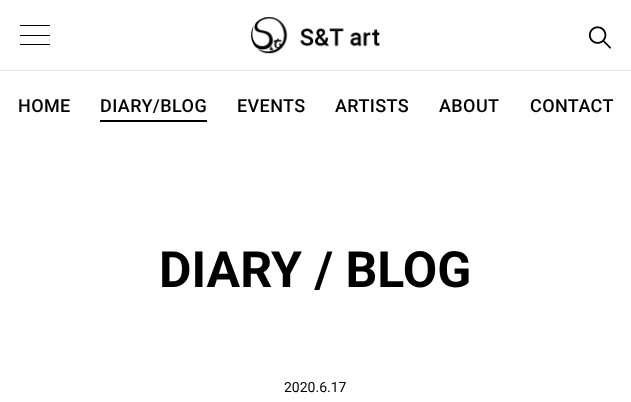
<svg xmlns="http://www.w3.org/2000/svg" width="631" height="402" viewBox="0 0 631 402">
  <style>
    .t1 { font: 500 18px Roboto; letter-spacing: 0.4px; fill: #000; }
    .t2 { font: bold 50px Roboto; fill: #000; }
    .t3 { font: 14px Roboto; fill: #000; }
  </style>
  <rect width="100%" height="100%" fill="#fff"/>
  <rect x="0" y="70" width="631" height="1" fill="#e5e5e5"/>
  <rect x="20" y="25" width="30" height="1" fill="#000"/>
  <rect x="20" y="35" width="30" height="1" fill="#000"/>
  <rect x="20" y="44" width="30" height="1" fill="#000"/>
  <image x="251" y="17" width="129" height="37" href="images/1.png"/>
  <image x="589" y="26" width="22" height="23" href="images/2.png"/>
  <text x="18" y="112" class="t1">HOME</text>
  <text x="100" y="112" class="t1">DIARY/BLOG</text>
  <rect x="100" y="120" width="107" height="2" fill="#000"/>
  <text x="237" y="112" class="t1">EVENTS</text>
  <text x="335" y="112" class="t1">ARTISTS</text>
  <text x="439" y="112" class="t1">ABOUT</text>
  <text x="530" y="112" class="t1">CONTACT</text>
  <text x="159" y="287" class="t2">DIARY / BLOG</text>
  <text x="284" y="392" class="t3">2020.6.17</text>
</svg>
